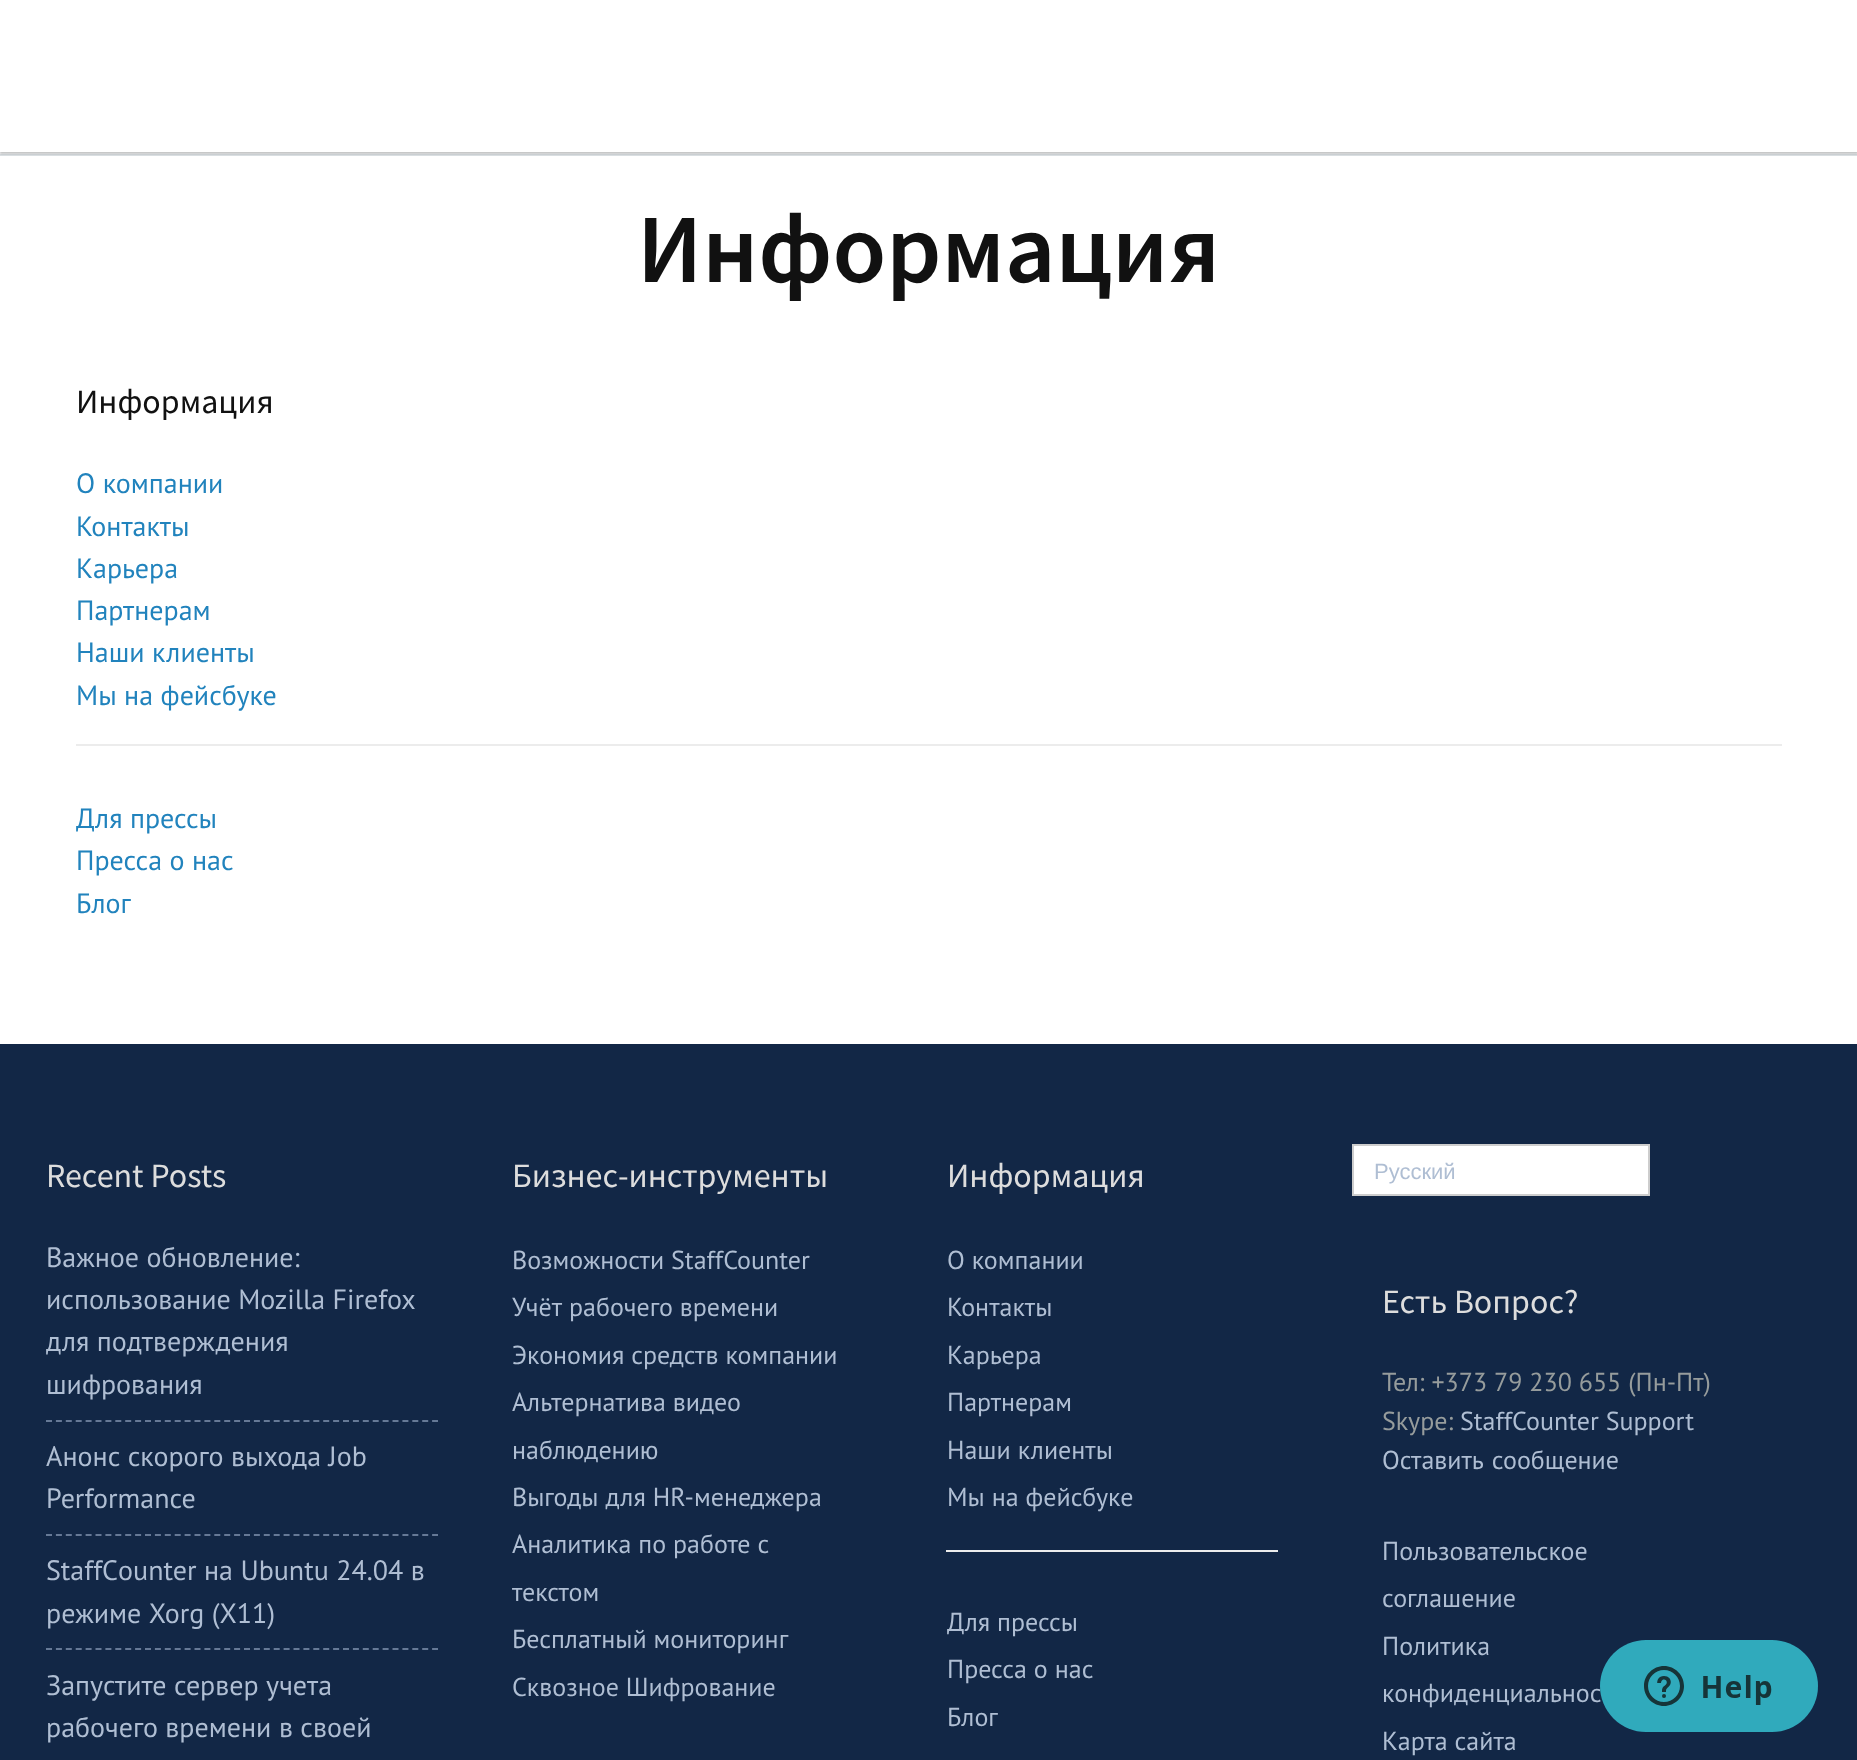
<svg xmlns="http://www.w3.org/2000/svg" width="1857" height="1760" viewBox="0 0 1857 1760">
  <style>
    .t1 { font: 600 98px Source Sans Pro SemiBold; fill: #111; }
    .t2 { font: 34px Source Sans Pro; fill: #111; }
    .t3 { font: 28px PT Sans; fill: #2183bd; }
    .t4 { font: 34px Source Sans Pro; fill: #ddd; }
    .t5 { font: 28px PT Sans; fill: #afbed3; }
    .t6 { font: 26px PT Sans; fill: #afbed3; }
    .t7 { font: 22px Liberation Sans; fill: #afbed3; }
    .t8 { font: 26px PT Sans; fill: #969c9c; }
  </style>
  <defs>
    <clipPath id="clip1"><rect x="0" y="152" width="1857" height="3"/></clipPath>
  </defs>
  <rect width="100%" height="100%" fill="#fff"/>
  <rect x="0" y="152" width="1857" height="2" fill="#f4f5f6"/>
  <rect x="0" y="154" width="1857" height="2" fill="#d9dee1"/>
  <g clip-path="url(#clip1)">
    <rect x="0" y="2" width="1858" height="152" fill="#00000033" filter="blur(1px)"/>
  </g>
  <text x="637" y="282" class="t1">Информация</text>
  <text x="76" y="413" class="t2">Информация</text>
  <text x="76" y="493" class="t3">О компании</text>
  <text x="76" y="536" class="t3">Контакты</text>
  <text x="76" y="578" class="t3">Карьера</text>
  <text x="76" y="620" class="t3">Партнерам</text>
  <text x="76" y="662" class="t3">Наши клиенты</text>
  <text x="76" y="705" class="t3">Мы на фейсбуке</text>
  <rect x="76" y="744" width="1706" height="2" fill="#ececec"/>
  <text x="76" y="828" class="t3">Для прессы</text>
  <text x="76" y="870" class="t3">Пресса о нас</text>
  <text x="76" y="913" class="t3">Блог</text>
  <rect x="0" y="1044" width="1857" height="716" fill="#122746"/>
  <text x="46" y="1187" class="t4">Recent Posts</text>
  <text x="46" y="1267" class="t5">Важное обновление:</text>
  <text x="46" y="1309" class="t5">использование Mozilla Firefox</text>
  <text x="46" y="1351" class="t5">для подтверждения</text>
  <text x="46" y="1394" class="t5">шифрования</text>
  <path d="M46 1421H438" fill="none" stroke="#667996" stroke-width="2" stroke-dasharray="6 3.9"/>
  <text x="46" y="1466" class="t5">Анонс скорого выхода Job</text>
  <text x="46" y="1508" class="t5">Performance</text>
  <path d="M46 1535H438" fill="none" stroke="#667996" stroke-width="2" stroke-dasharray="6 3.9"/>
  <text x="46" y="1580" class="t5">StaffСounter на Ubuntu 24.04 в</text>
  <text x="46" y="1623" class="t5">режиме Xorg (X11)</text>
  <path d="M46 1649H438" fill="none" stroke="#667996" stroke-width="2" stroke-dasharray="6 3.9"/>
  <text x="46" y="1695" class="t5">Запустите сервер учета</text>
  <text x="46" y="1737" class="t5">рабочего времени в своей</text>
  <text x="512" y="1187" class="t4">Бизнес-инструменты</text>
  <text x="512" y="1269" class="t6">Возможности StaffCounter</text>
  <text x="512" y="1316" class="t6">Учёт рабочего времени</text>
  <text x="512" y="1364" class="t6">Экономия средств компании</text>
  <text x="512" y="1411" class="t6">Альтернатива видео</text>
  <text x="512" y="1459" class="t6">наблюдению</text>
  <text x="512" y="1506" class="t6">Выгоды для HR-менеджера</text>
  <text x="512" y="1553" class="t6">Аналитика по работе с</text>
  <text x="512" y="1601" class="t6">текстом</text>
  <text x="512" y="1648" class="t6">Бесплатный мониторинг</text>
  <text x="512" y="1696" class="t6">Сквозное Шифрование</text>
  <text x="947" y="1187" class="t4">Информация</text>
  <text x="947" y="1269" class="t6">О компании</text>
  <text x="947" y="1316" class="t6">Контакты</text>
  <text x="947" y="1364" class="t6">Карьера</text>
  <text x="947" y="1411" class="t6">Партнерам</text>
  <text x="947" y="1459" class="t6">Наши клиенты</text>
  <text x="947" y="1506" class="t6">Мы на фейсбуке</text>
  <rect x="946" y="1550" width="332" height="2" fill="#ececec"/>
  <text x="947" y="1631" class="t6">Для прессы</text>
  <text x="947" y="1678" class="t6">Пресса о нас</text>
  <text x="947" y="1726" class="t6">Блог</text>
  <rect x="1353" y="1145" width="296" height="50" fill="#fff" stroke="#cdcdcd" stroke-width="2"/>
  <text x="1374" y="1179" class="t7">Русский</text>
  <text x="1382" y="1313" class="t4">Есть Вопрос?</text>
  <text x="1382" y="1391" class="t8">Тел: +373 79 230 655 (Пн-Пт)</text>
  <text x="1382" y="1430" class="t8">Skype:</text>
  <text x="1460" y="1430" class="t6">StaffCounter Support</text>
  <text x="1382" y="1469" word-spacing="1" class="t6">Оставить сообщение</text>
  <text x="1382" y="1560" class="t6">Пользовательское</text>
  <text x="1382" y="1607" class="t6">соглашение</text>
  <text x="1382" y="1655" class="t6">Политика</text>
  <text x="1382" y="1702" class="t6">конфиденциальнос</text>
  <text x="1382" y="1750" class="t6">Карта сайта</text>
  <image x="1600" y="1640" width="218" height="92" href="images/1.png"/>
</svg>
